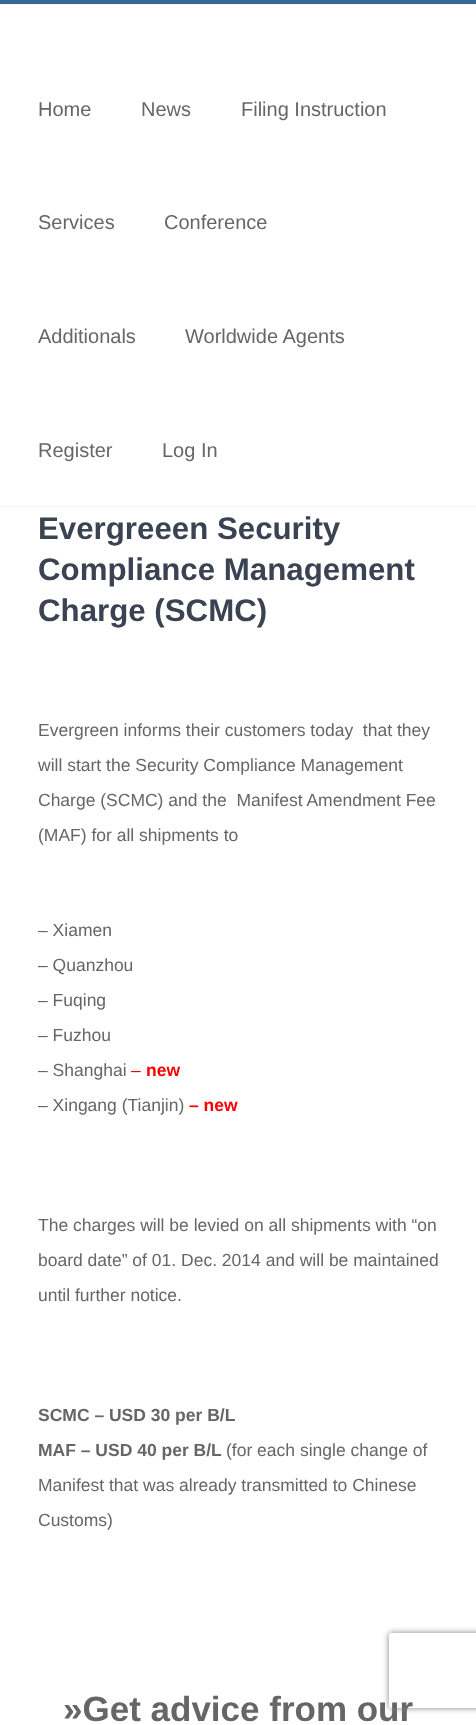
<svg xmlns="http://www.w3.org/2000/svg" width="476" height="1725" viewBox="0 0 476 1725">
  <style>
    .t1 { font: 20px Liberation Sans; fill: #666; }
    .t2 { font: bold 31.25px Liberation Sans; fill: #3b4251; }
    .t3 { font: 17.5px Liberation Sans; fill: #666; }
    .t4 { font: 17.5px Liberation Sans; fill: #f00; }
    .t5 { font: bold 17.5px Liberation Sans; fill: #f00; }
    .t6 { font: bold 17.5px Liberation Sans; fill: #666; }
    .t7 { font: bold 35px Liberation Sans; fill: #666; }
  </style>
  <defs>
    <clipPath id="clip1"><path d="M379 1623H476V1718H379ZM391.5 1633H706.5C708 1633 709 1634 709 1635.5V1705.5C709 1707 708 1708 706.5 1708H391.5C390 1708 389 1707 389 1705.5V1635.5C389 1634 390 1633 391.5 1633Z" clip-rule="evenodd"/></clipPath>
  </defs>
  <rect width="100%" height="100%" fill="#fff"/>
  <rect x="0" y="0" width="476" height="4" fill="#366796"/>
  <rect x="0" y="4" width="476" height="1" fill="#f5f5f5"/>
  <rect x="0" y="506" width="476" height="1" fill="#f5f5f5"/>
  <text x="38" y="116" class="t1">Home</text>
  <text x="141" y="116" class="t1">News</text>
  <text x="241" y="116" class="t1">Filing Instruction</text>
  <text x="38" y="229" class="t1">Services</text>
  <text x="164" y="229" class="t1">Conference</text>
  <text x="38" y="343" class="t1">Additionals</text>
  <text x="185" y="343" class="t1">Worldwide Agents</text>
  <text x="38" y="457" class="t1">Register</text>
  <text x="162" y="457" class="t1">Log In</text>
  <text x="38" y="539" class="t2">Evergreeen Security</text>
  <text x="38" y="580" class="t2">Compliance Management</text>
  <text x="38" y="621" class="t2">Charge (SCMC)</text>
  <text x="38" y="736" class="t3" xml:space="preserve">Evergreen informs their customers today  that they</text>
  <text x="38" y="771" class="t3">will start the Security Compliance Management</text>
  <text x="38" y="806" class="t3" xml:space="preserve">Charge (SCMC) and the  Manifest Amendment Fee</text>
  <text x="38" y="841" class="t3">(MAF) for all shipments to</text>
  <text x="38" y="936" class="t3">– Xiamen</text>
  <text x="38" y="971" class="t3">– Quanzhou</text>
  <text x="38" y="1006" class="t3">– Fuqing</text>
  <text x="38" y="1041" class="t3">– Fuzhou</text>
  <text x="38" y="1076" class="t3">– Shanghai</text>
  <text x="131" y="1076" class="t4">–</text>
  <text x="146" y="1076" class="t5">new</text>
  <text x="38" y="1111" class="t3">– Xingang (Tianjin)</text>
  <text x="189" y="1111" class="t5">– new</text>
  <text x="38" y="1231" class="t3">The charges will be levied on all shipments with “on</text>
  <text x="38" y="1266" class="t3">board date” of 01. Dec. 2014 and will be maintained</text>
  <text x="38" y="1301" class="t3">until further notice.</text>
  <text x="38" y="1421" class="t6">SCMC – USD 30 per B/L</text>
  <text x="38" y="1456" class="t6">MAF – USD 40 per B/L</text>
  <text x="226" y="1456" class="t3">(for each single change of</text>
  <text x="38" y="1491" class="t3">Manifest that was already transmitted to Chinese</text>
  <text x="38" y="1526" class="t3">Customs)</text>
  <text x="63" y="1721" class="t7">»Get advice from our</text>
  <g clip-path="url(#clip1)">
    <rect x="389" y="1633" width="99" height="75" rx="2.5" fill="#808080" filter="blur(3px)"/>
  </g>
</svg>
